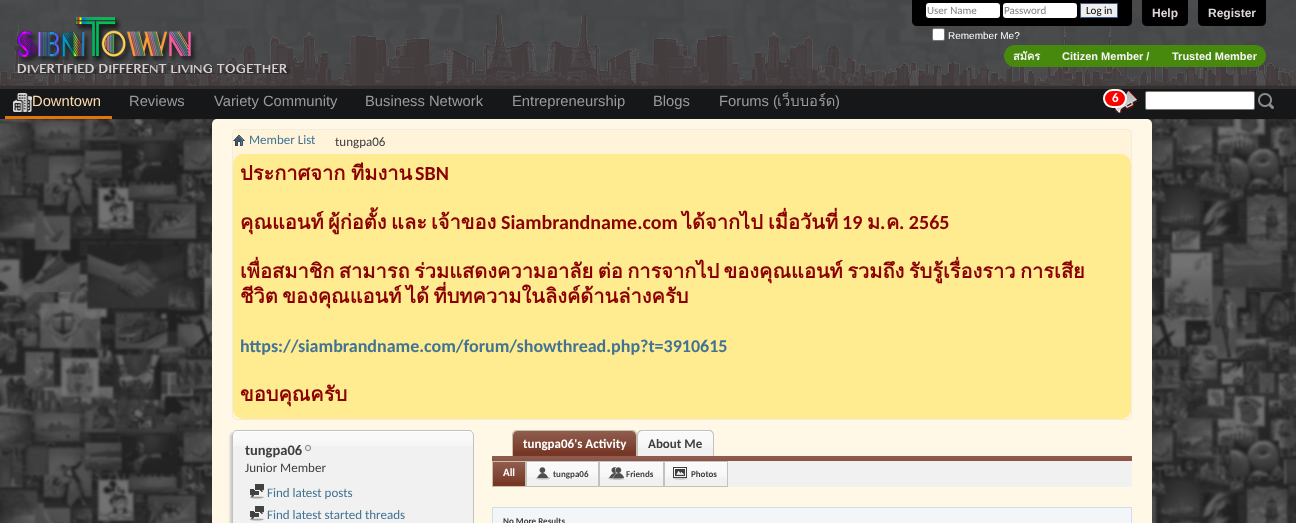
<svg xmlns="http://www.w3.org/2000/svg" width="1296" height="523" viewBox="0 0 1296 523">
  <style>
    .t1 { font: 11px Carlito; fill: #828282; }
    .t2 { font: 11px Carlito; fill: #000; }
    .t3 { font: 10px Liberation Sans; fill: #fff; }
    .t4 { font: bold 12px Liberation Sans; fill: #dfd7d7; }
    .t5 { font: bold 11px Loma; fill: #f6f6f6; }
    .t6 { font: bold 11px Liberation Sans; fill: #f6f6f6; }
    .t7 { font: 14.75px Liberation Sans; fill: #fddbae; }
    .t8 { font: 14.75px Liberation Sans; fill: #9b9b9b; }
    .t9 { font: 14.75px Loma; fill: #9b9b9b; }
    .t10 { font: bold 13px Carlito; fill: #fff; }
    .t11 { font: 13px Carlito; fill: #417394; }
    .t12 { font: 13px Carlito; fill: #3e3e3e; }
    .t13 { font: bold 20px Loma; fill: #8b0000; }
    .t14 { font: bold 20px Carlito; fill: #8b0000; }
    .t15 { font: bold 18px Carlito; fill: #417394; }
    .t16 { font: bold 14.5px Carlito; fill: #3e3e3e; }
    .t17 { font: bold 13px Carlito; fill: #3e3e3e; }
    .t18 { font: bold 11px Carlito; fill: #fff; }
    .t19 { font: bold 9px Carlito; fill: #3e3e3e; }
  </style>
  <rect width="100%" height="100%" fill="#fff"/>
  <image x="0" y="0" width="1296" height="523" href="images/1.png"/>
  <rect x="0" y="0" width="1296" height="86" fill="#494a4de6"/>
  <image x="0" y="15" width="1296" height="71" href="images/2.png"/>
  <image x="17" y="17" width="274" height="57" href="images/3.png"/>
  <path d="M912 0H1132V21C1132 24 1130 26 1127 26H917C914 26 912 24 912 21Z" fill="#000"/>
  <rect x="926" y="3" width="74" height="15" rx="3" fill="#fff"/>
  <text x="927" y="14" class="t1">User Name</text>
  <rect x="1003" y="3" width="74" height="15" rx="3" fill="#fff"/>
  <text x="1004" y="14" class="t1">Password</text>
  <rect x="1080.5" y="3.5" width="37" height="14" fill="#efefef" stroke="#415d8d"/>
  <text x="1086" y="14" class="t2">Log in</text>
  <rect x="932.5" y="28.5" width="12" height="12" rx="1.5" fill="#fff" stroke="#767676"/>
  <text x="948" y="39" class="t3">Remember Me?</text>
  <path d="M1142 0H1188V21C1188 24 1186 26 1183 26H1147C1144 26 1142 24 1142 21Z" fill="#000"/>
  <text x="1152" y="17" class="t4">Help</text>
  <path d="M1198 0H1266V21C1266 24 1264 26 1261 26H1203C1200 26 1198 24 1198 21Z" fill="#000"/>
  <text x="1208" y="17" class="t4">Register</text>
  <rect x="1004" y="45" width="262" height="22" rx="11" fill="#479006e6"/>
  <text x="1013" y="60" class="t5">สมัคร</text>
  <text x="1062" y="60" class="t6">Citizen Member /</text>
  <text x="1172" y="60" class="t6">Trusted Member</text>
  <rect x="0" y="87" width="1296" height="31" fill="#000" filter="blur(1px)"/>
  <rect x="0" y="86" width="1296" height="3" fill="#33302e"/>
  <rect x="0" y="89" width="1296" height="30" fill="#161718"/>
  <rect x="5" y="116" width="107" height="3" fill="#e27409"/>
  <image x="13" y="93" width="19" height="19" href="images/4.png"/>
  <text x="32" y="106" class="t7">Downtown</text>
  <text x="129" y="106" class="t8">Reviews</text>
  <text x="214" y="106" class="t8">Variety Community</text>
  <text x="365" y="106" class="t8">Business Network</text>
  <text x="512" y="106" class="t8">Entrepreneurship</text>
  <text x="653" y="106" class="t8">Blogs</text>
  <text x="719" y="106" class="t8">Forums (</text>
  <text x="777" y="106" class="t9">เว็บบอร์ด</text>
  <text x="835" y="106" class="t8">)</text>
  <image x="1115" y="91" width="22" height="22" href="images/5.png"/>
  <rect x="1104" y="90" width="22" height="17" rx="8.5" fill="#f00" stroke="#fff" stroke-width="2"/>
  <text x="1112" y="102" class="t10">6</text>
  <rect x="1145.5" y="91.5" width="109" height="18" rx="1.5" fill="#fff" stroke="#767676"/>
  <image x="1258" y="93" width="16" height="16" href="images/6.png"/>
  <rect x="212" y="119" width="940" height="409" rx="5" fill="#fff8e7"/>
  <rect x="232" y="129" width="900" height="291" rx="5" fill="#fff4d9"/>
  <path d="M237 129.5H1127C1129.5 129.5 1131.5 131.5 1131.5 134V415C1131.5 417.5 1129.5 419.5 1127 419.5H237C234.5 419.5 232.5 417.5 232.5 415V134C232.5 131.5 234.5 129.5 237 129.5Z" fill="none" stroke="#e5e5e5" stroke-dasharray="1 1"/>
  <image x="233" y="135" width="12" height="11" href="images/7.png"/>
  <text x="249" y="144" class="t11">Member List</text>
  <text x="335" y="146" class="t12">tungpa06</text>
  <rect x="233" y="154" width="898" height="265" rx="10" fill="#ffeb90"/>
  <text x="240" y="180" word-spacing="-1" class="t13">ประกาศจาก ทีมงาน</text>
  <text x="415" y="180" class="t14">SBN</text>
  <text x="240" y="229" class="t13">คุณแอนท์</text>
  <text x="328" y="229" class="t13">ผู้ก่อตั้ง</text>
  <text x="391" y="229" class="t13">และ</text>
  <text x="431" y="229" class="t13">เจ้าของ</text>
  <text x="501" y="229" class="t14">Siambrandname.com</text>
  <text x="682" y="229" class="t13">ได้จากไป</text>
  <text x="768" y="229" class="t13">เมื่อวันที่</text>
  <text x="842" y="229" class="t14">19</text>
  <text x="867" y="229" class="t13">ม</text>
  <text x="880" y="229" class="t14">.</text>
  <text x="886" y="229" class="t13">ค</text>
  <text x="899" y="229" class="t14">. 2565</text>
  <text x="240" y="278" word-spacing="-2.25" class="t13">เพื่อสมาชิก สามารถ ร่วมแสดงความอาลัย ต่อ การจากไป ของคุณแอนท์ รวมถึง รับรู้เรื่องราว การเสีย</text>
  <text x="240" y="303" word-spacing="-2.25" class="t13">ชีวิต ของคุณแอนท์ ได้ ที่บทความในลิงค์ด้านล่างครับ</text>
  <text x="240" y="352" class="t15">https://siambrandname.com/forum/showthread.php?t=3910615</text>
  <text x="240" y="401" class="t13">ขอบคุณครับ</text>
  <rect x="230" y="432" width="242" height="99" rx="5" fill="#c8c8c8" filter="blur(1px)"/>
  <rect x="232" y="430" width="242" height="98" rx="5" fill="#f1f1f1"/>
  <image x="232" y="431" width="242" height="15" href="images/8.png"/>
  <rect x="232.5" y="430.5" width="241" height="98" rx="4.5" fill="none" stroke="#c1c1c1"/>
  <image x="235" y="431" width="236" height="1" href="images/9.png"/>
  <text x="245" y="455" class="t16">tungpa06</text>
  <image x="305" y="445" width="6" height="6" href="images/10.png"/>
  <text x="245" y="472" class="t12">Junior Member</text>
  <image x="249" y="484" width="15" height="15" href="images/11.png"/>
  <text x="267" y="497" class="t11">Find latest posts</text>
  <image x="249" y="506" width="15" height="15" href="images/11.png"/>
  <text x="267" y="519" class="t11">Find latest started threads</text>
  <path d="M517 431H632C634 431 636 433 636 435V456H513V435C513 433 515 431 517 431Z" fill="#763726"/>
  <image x="513" y="431" width="123" height="20" href="images/12.png"/>
  <path d="M517 430H632C635 430 637 432 637 435V456H512V435C512 432 514 430 517 430ZM517 431H632C634 431 636 433 636 435V456H513V435C513 433 515 431 517 431Z" fill="#c9c0a6" fill-rule="evenodd"/>
  <text x="523" y="448" class="t10">tungpa06's Activity</text>
  <path d="M642 431H709C711 431 713 433 713 435V456H638V435C638 433 640 431 642 431Z" fill="#f1f1f1"/>
  <image x="637" y="431" width="77" height="18" href="images/13.png"/>
  <path d="M642 430H709C712 430 714 432 714 435V456H637V435C637 432 639 430 642 430ZM642 431H709C711 431 713 433 713 435V456H638V435C638 433 640 431 642 431Z" fill="#c1c1c1" fill-rule="evenodd"/>
  <text x="648" y="448" class="t17">About Me</text>
  <rect x="492" y="456" width="640" height="5" fill="#763726"/>
  <image x="492" y="456" width="640" height="5" href="images/14.png"/>
  <rect x="527" y="461" width="605" height="26" fill="#f1f1f1"/>
  <rect x="493" y="462" width="32" height="24" fill="#763726"/>
  <image x="493" y="462" width="32" height="20" href="images/15.png"/>
  <rect x="492.5" y="461.5" width="33" height="25" fill="none" stroke="#c9c0a6"/>
  <text x="503" y="476" class="t18">All</text>
  <image x="527" y="462" width="71" height="15" href="images/16.png"/>
  <rect x="526.5" y="461.5" width="72" height="25" fill="none" stroke="#c1c1c1"/>
  <image x="536" y="467" width="14" height="13" href="images/17.png"/>
  <text x="553" y="477" class="t19">tungpa06</text>
  <image x="600" y="462" width="63" height="15" href="images/18.png"/>
  <rect x="599.5" y="461.5" width="64" height="25" fill="none" stroke="#c1c1c1"/>
  <image x="608" y="467" width="16" height="13" href="images/19.png"/>
  <text x="626" y="477" class="t19">Friends</text>
  <image x="665" y="462" width="62" height="15" href="images/20.png"/>
  <rect x="664.5" y="461.5" width="63" height="25" fill="none" stroke="#c1c1c1"/>
  <image x="673" y="467" width="15" height="13" href="images/21.png"/>
  <text x="691" y="477" class="t19">Photos</text>
  <rect x="492.5" y="507.5" width="639" height="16" fill="#f2f6f8" stroke="#cedfeb"/>
  <text x="503" y="524" class="t19">No More Results</text>
</svg>
